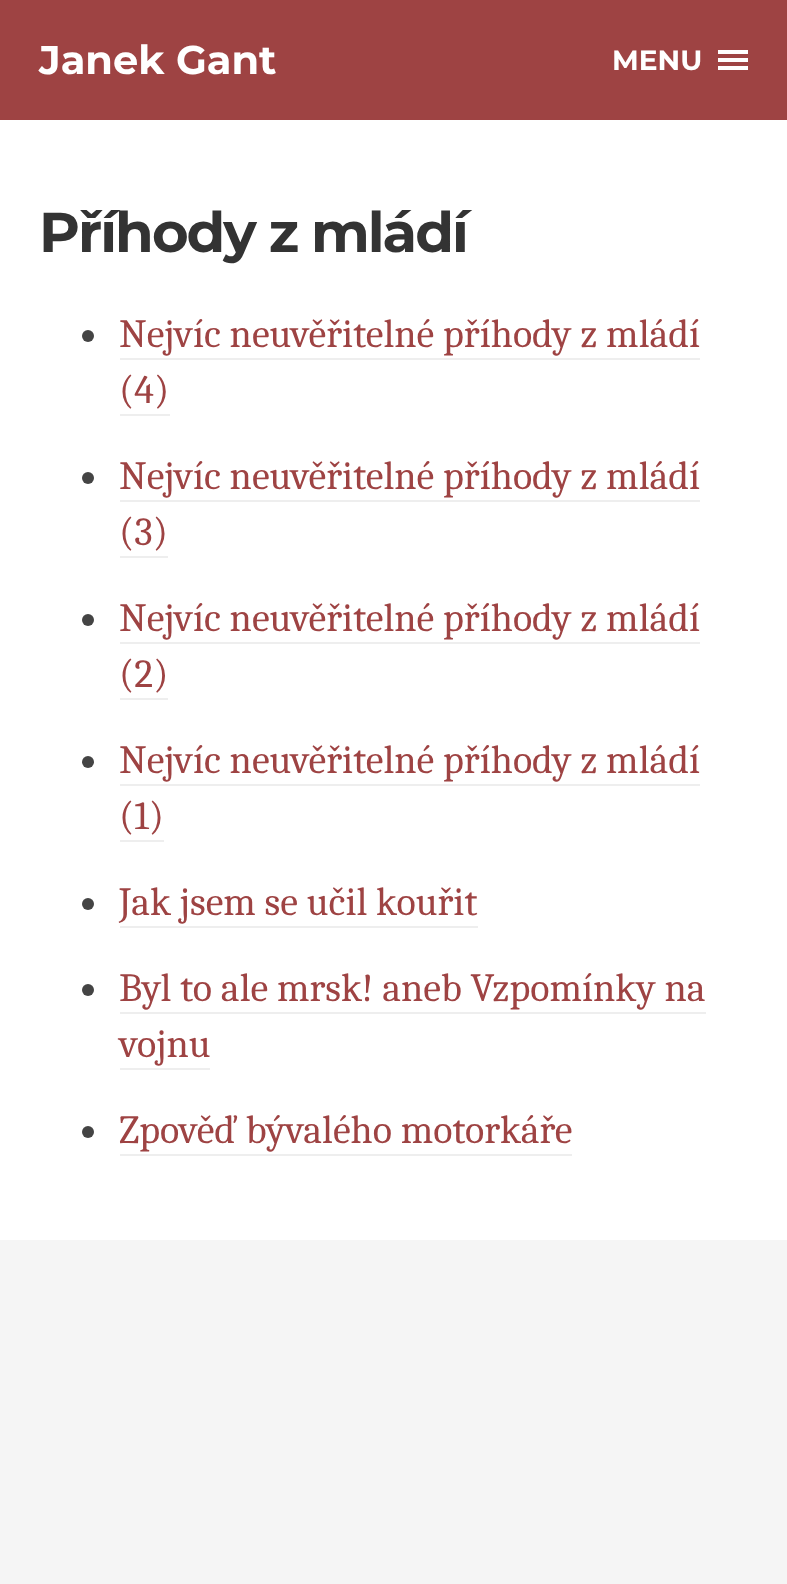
<svg xmlns="http://www.w3.org/2000/svg" width="787" height="1584" viewBox="0 0 787 1584">
  <style>
    .t1 { font: bold 40px Montserrat; fill: #fff; }
    .t2 { font: bold 28px Montserrat; fill: #fff; }
    .t3 { font: bold 56px Montserrat; letter-spacing: -2px; fill: #333; }
    .t4 { font: 40px Caladea; fill: #9e4343; }
  </style>
  <rect width="100%" height="100%" fill="#f5f5f5"/>
  <rect x="0" y="0" width="787" height="120" fill="#9e4343"/>
  <text x="39" y="74" class="t1">Janek Gant</text>
  <text x="612" y="70" class="t2">MENU</text>
  <rect x="718" y="50" width="30" height="4" fill="#fff"/>
  <rect x="718" y="58" width="30" height="4" fill="#fff"/>
  <rect x="718" y="66" width="30" height="4" fill="#fff"/>
  <rect x="0" y="120" width="787" height="1120" fill="#fff"/>
  <text x="39" y="252" class="t3">Příhody z mládí</text>
  <circle cx="88" cy="336" r="6" fill="#444"/>
  <text x="119" y="347" class="t4">Nejvíc neuvěřitelné příhody z mládí</text>
  <rect x="120" y="358" width="580" height="2" fill="#eee"/>
  <text x="119" y="403" class="t4">(4)</text>
  <rect x="120" y="414" width="50" height="2" fill="#eee"/>
  <circle cx="88" cy="478" r="6" fill="#444"/>
  <text x="119" y="489" class="t4">Nejvíc neuvěřitelné příhody z mládí</text>
  <rect x="120" y="500" width="580" height="2" fill="#eee"/>
  <text x="119" y="545" class="t4">(3)</text>
  <rect x="120" y="556" width="48" height="2" fill="#eee"/>
  <circle cx="88" cy="620" r="6" fill="#444"/>
  <text x="119" y="631" class="t4">Nejvíc neuvěřitelné příhody z mládí</text>
  <rect x="120" y="642" width="580" height="2" fill="#eee"/>
  <text x="119" y="687" class="t4">(2)</text>
  <rect x="120" y="698" width="48" height="2" fill="#eee"/>
  <circle cx="88" cy="762" r="6" fill="#444"/>
  <text x="119" y="773" class="t4">Nejvíc neuvěřitelné příhody z mládí</text>
  <rect x="120" y="784" width="580" height="2" fill="#eee"/>
  <text x="119" y="829" class="t4">(1)</text>
  <rect x="120" y="840" width="44" height="2" fill="#eee"/>
  <circle cx="88" cy="904" r="6" fill="#444"/>
  <text x="119" y="915" class="t4">Jak jsem se učil kouřit</text>
  <rect x="120" y="926" width="358" height="2" fill="#eee"/>
  <circle cx="88" cy="990" r="6" fill="#444"/>
  <text x="119" y="1001" class="t4">Byl to ale mrsk! aneb Vzpomínky na</text>
  <rect x="120" y="1012" width="586" height="2" fill="#eee"/>
  <text x="119" y="1057" class="t4">vojnu</text>
  <rect x="120" y="1068" width="90" height="2" fill="#eee"/>
  <circle cx="88" cy="1132" r="6" fill="#444"/>
  <text x="119" y="1143" class="t4">Zpověď bývalého motorkáře</text>
  <rect x="120" y="1154" width="452" height="2" fill="#eee"/>
</svg>
